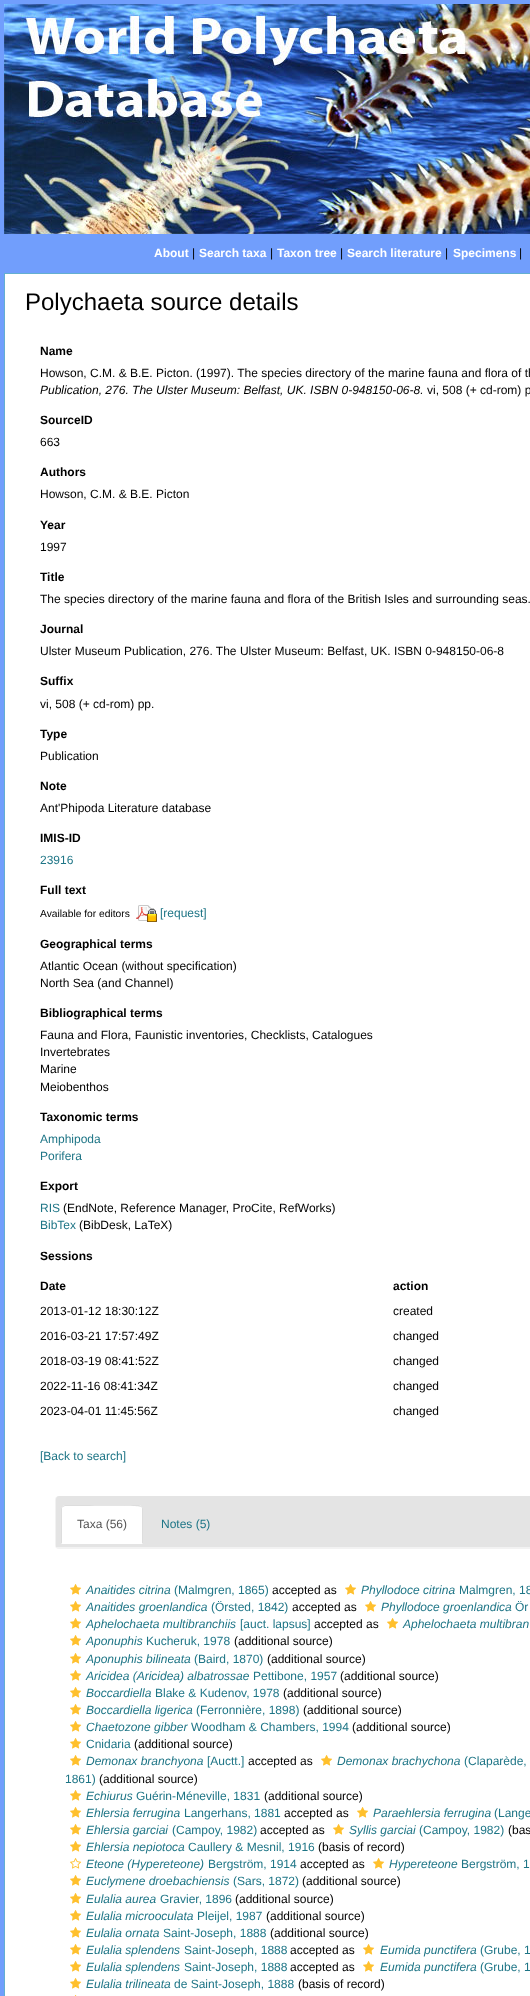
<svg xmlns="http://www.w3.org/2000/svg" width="530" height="1996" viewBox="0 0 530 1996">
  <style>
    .t1 { font: bold 12px Liberation Sans; fill: #fff; }
    .t2 { font: 12px Liberation Sans; fill: #000; }
    .t3 { font: 24px Liberation Sans; fill: #000; }
    .t4 { font: bold 12px Liberation Sans; fill: #000; }
    .t5 { font: italic 12px Liberation Sans; fill: #000; }
    .t6 { font: 12px Liberation Sans; fill: #1e7586; }
    .t7 { font: 10.25px Liberation Sans; fill: #000; }
    .t8 { font: 12px Liberation Sans; fill: #555; }
    .t9 { font: italic 12px Liberation Sans; fill: #1e7586; }
  </style>
  <rect width="100%" height="100%" fill="#719efc"/>
  <image x="4" y="4" width="526" height="230" href="images/1.png"/>
  <text x="154" y="257" class="t1">About</text>
  <text x="192" y="257" class="t2">|</text>
  <text x="199" y="257" class="t1">Search taxa</text>
  <text x="270" y="257" class="t2">|</text>
  <text x="277" y="257" class="t1">Taxon tree</text>
  <text x="340" y="257" class="t2">|</text>
  <text x="347" y="257" class="t1">Search literature</text>
  <text x="445" y="257" class="t2">|</text>
  <text x="453" y="257" class="t1">Specimens</text>
  <text x="519" y="257" class="t2">|</text>
  <rect x="4.5" y="273.5" width="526" height="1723" fill="#fff" stroke="#63afd0"/>
  <text x="25" y="310" class="t3">Polychaeta source details</text>
  <text x="40" y="355" class="t4">Name</text>
  <text x="40" y="377" class="t2">Howson, C.M. &amp; B.E. Picton. (1997). The species directory of the marine fauna and flora of th</text>
  <text x="40" y="394" class="t5">Publication, 276. The Ulster Museum: Belfast, UK. ISBN 0-948150-06-8.</text>
  <text x="427" y="394" class="t2">vi, 508 (+ cd-rom) p</text>
  <text x="40" y="424" class="t4">SourceID</text>
  <text x="40" y="446" class="t2">663</text>
  <text x="40" y="476" class="t4">Authors</text>
  <text x="40" y="498" class="t2">Howson, C.M. &amp; B.E. Picton</text>
  <text x="40" y="529" class="t4">Year</text>
  <text x="40" y="551" class="t2">1997</text>
  <text x="40" y="581" class="t4">Title</text>
  <text x="40" y="603" class="t2">The species directory of the marine fauna and flora of the British Isles and surrounding seas.</text>
  <text x="40" y="633" class="t4">Journal</text>
  <text x="40" y="655" class="t2">Ulster Museum Publication, 276. The Ulster Museum: Belfast, UK. ISBN 0-948150-06-8</text>
  <text x="40" y="685" class="t4">Suffix</text>
  <text x="40" y="708" class="t2">vi, 508 (+ cd-rom) pp.</text>
  <text x="40" y="738" class="t4">Type</text>
  <text x="40" y="760" class="t2">Publication</text>
  <text x="40" y="790" class="t4">Note</text>
  <text x="40" y="812" class="t2">Ant'Phipoda Literature database</text>
  <text x="40" y="842" class="t4">IMIS-ID</text>
  <text x="40" y="864" class="t6">23916</text>
  <text x="40" y="894" class="t4">Full text</text>
  <text x="40" y="917" class="t7">Available for editors</text>
  <image x="136" y="905" width="21" height="17" href="images/2.png"/>
  <text x="160" y="917" class="t6">[request]</text>
  <text x="40" y="948" class="t4">Geographical terms</text>
  <text x="40" y="970" class="t2">Atlantic Ocean (without specification)</text>
  <text x="40" y="987" class="t2">North Sea (and Channel)</text>
  <text x="40" y="1017" class="t4">Bibliographical terms</text>
  <text x="40" y="1039" class="t2">Fauna and Flora, Faunistic inventories, Checklists, Catalogues</text>
  <text x="40" y="1056" class="t2">Invertebrates</text>
  <text x="40" y="1073" class="t2">Marine</text>
  <text x="40" y="1091" class="t2">Meiobenthos</text>
  <text x="40" y="1121" class="t4">Taxonomic terms</text>
  <text x="40" y="1143" class="t6">Amphipoda</text>
  <text x="40" y="1160" class="t6">Porifera</text>
  <text x="40" y="1190" class="t4">Export</text>
  <text x="40" y="1212" class="t6">RIS</text>
  <text x="63" y="1212" class="t2">(EndNote, Reference Manager, ProCite, RefWorks)</text>
  <text x="40" y="1229" class="t6">BibTex</text>
  <text x="79" y="1229" class="t2">(BibDesk, LaTeX)</text>
  <text x="40" y="1260" class="t4">Sessions</text>
  <text x="40" y="1290" class="t4">Date</text>
  <text x="393" y="1290" class="t4">action</text>
  <text x="40" y="1315" class="t2">2013-01-12 18:30:12Z</text>
  <text x="393" y="1315" class="t2">created</text>
  <text x="40" y="1340" class="t2">2016-03-21 17:57:49Z</text>
  <text x="393" y="1340" class="t2">changed</text>
  <text x="40" y="1365" class="t2">2018-03-19 08:41:52Z</text>
  <text x="393" y="1365" class="t2">changed</text>
  <text x="40" y="1390" class="t2">2022-11-16 08:41:34Z</text>
  <text x="393" y="1390" class="t2">changed</text>
  <text x="40" y="1415" class="t2">2023-04-01 11:45:56Z</text>
  <text x="393" y="1415" class="t2">changed</text>
  <text x="40" y="1460" class="t6">[Back to search]</text>
  <rect x="55" y="1496" width="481" height="53" rx="4" fill="#0000000d" filter="blur(0.5px)"/>
  <path d="M59 1496H530C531.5 1496 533 1497.5 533 1499V1547H56V1499C56 1497.5 57.5 1496 59 1496Z" fill="#e4e4e4"/>
  <path d="M65 1505H139C141 1505 143 1507 143 1509V1544H61V1509C61 1507 63 1505 65 1505Z" fill="#fff"/>
  <path d="M65 1505L62 1506L63 1507L65 1506H77C84 1506 139 1505 141 1507L142 1506L139 1505Z" fill="#ddd"/>
  <path d="M143 1544V1509C143 1508 142.5 1507 142 1506L141 1507C142 1507 142 1508 142 1509V1543Z" fill="#ddd"/>
  <path d="M61 1544L62 1543V1509C62 1508 62 1507 63 1507L62 1506C61.5 1507 61 1508 61 1509Z" fill="#ddd"/>
  <text x="77" y="1528" class="t8">Taxa (56)</text>
  <text x="161" y="1528" class="t6">Notes (5)</text>
  <image x="70" y="1584" width="12" height="11" href="images/3.png"/>
  <text x="86" y="1594" class="t9">Anaitides citrina</text>
  <text x="174" y="1594" class="t6">(Malmgren, 1865)</text>
  <text x="272" y="1594" class="t2">accepted as</text>
  <image x="345" y="1584" width="12" height="11" href="images/3.png"/>
  <text x="361" y="1594" class="t9">Phyllodoce citrina</text>
  <text x="459" y="1594" class="t6">Malmgren, 18</text>
  <image x="70" y="1601" width="12" height="11" href="images/3.png"/>
  <text x="86" y="1611" class="t9">Anaitides groenlandica</text>
  <text x="211" y="1611" class="t6">(Örsted, 1842)</text>
  <text x="292" y="1611" class="t2">accepted as</text>
  <image x="365" y="1601" width="12" height="11" href="images/3.png"/>
  <text x="381" y="1611" class="t9">Phyllodoce groenlandica</text>
  <text x="515" y="1611" class="t6">Ör</text>
  <image x="70" y="1618" width="12" height="11" href="images/3.png"/>
  <text x="86" y="1628" class="t9">Aphelochaeta multibranchiis</text>
  <text x="240" y="1628" class="t6">[auct. lapsus]</text>
  <text x="314" y="1628" class="t2">accepted as</text>
  <image x="387" y="1618" width="12" height="11" href="images/3.png"/>
  <text x="403" y="1628" class="t9">Aphelochaeta multibran</text>
  <image x="70" y="1635" width="12" height="11" href="images/3.png"/>
  <text x="86" y="1645" class="t9">Aponuphis</text>
  <text x="146" y="1645" class="t6">Kucheruk, 1978</text>
  <text x="234" y="1645" class="t2">(additional source)</text>
  <image x="70" y="1653" width="12" height="11" href="images/3.png"/>
  <text x="86" y="1663" class="t9">Aponuphis bilineata</text>
  <text x="194" y="1663" class="t6">(Baird, 1870)</text>
  <text x="267" y="1663" class="t2">(additional source)</text>
  <image x="70" y="1670" width="12" height="11" href="images/3.png"/>
  <text x="86" y="1680" class="t9">Aricidea (Aricidea) albatrossae</text>
  <text x="253" y="1680" class="t6">Pettibone, 1957</text>
  <text x="340" y="1680" class="t2">(additional source)</text>
  <image x="70" y="1687" width="12" height="11" href="images/3.png"/>
  <text x="86" y="1697" class="t9">Boccardiella</text>
  <text x="155" y="1697" class="t6">Blake &amp; Kudenov, 1978</text>
  <text x="283" y="1697" class="t2">(additional source)</text>
  <image x="70" y="1704" width="12" height="11" href="images/3.png"/>
  <text x="86" y="1714" class="t9">Boccardiella ligerica</text>
  <text x="196" y="1714" class="t6">(Ferronnière, 1898)</text>
  <text x="303" y="1714" class="t2">(additional source)</text>
  <image x="70" y="1721" width="12" height="11" href="images/3.png"/>
  <text x="86" y="1731" class="t9">Chaetozone gibber</text>
  <text x="191" y="1731" class="t6">Woodham &amp; Chambers, 1994</text>
  <text x="352" y="1731" class="t2">(additional source)</text>
  <image x="70" y="1738" width="12" height="11" href="images/3.png"/>
  <text x="86" y="1748" class="t6">Cnidaria</text>
  <text x="134" y="1748" class="t2">(additional source)</text>
  <image x="70" y="1755" width="12" height="11" href="images/3.png"/>
  <text x="86" y="1765" class="t9">Demonax branchyona</text>
  <text x="207" y="1765" class="t6">[Auctt.]</text>
  <text x="248" y="1765" class="t2">accepted as</text>
  <image x="321" y="1755" width="12" height="11" href="images/3.png"/>
  <text x="337" y="1765" class="t9">Demonax brachychona</text>
  <text x="464" y="1765" class="t6">(Claparède,</text>
  <text x="65" y="1783" class="t6">1861)</text>
  <text x="99" y="1783" class="t2">(additional source)</text>
  <image x="70" y="1790" width="12" height="11" href="images/3.png"/>
  <text x="86" y="1800" class="t9">Echiurus</text>
  <text x="136" y="1800" class="t6">Guérin-Méneville, 1831</text>
  <text x="264" y="1800" class="t2">(additional source)</text>
  <image x="70" y="1807" width="12" height="11" href="images/3.png"/>
  <text x="86" y="1817" class="t9">Ehlersia ferrugina</text>
  <text x="184" y="1817" class="t6">Langerhans, 1881</text>
  <text x="284" y="1817" class="t2">accepted as</text>
  <image x="357" y="1807" width="12" height="11" href="images/3.png"/>
  <text x="373" y="1817" class="t9">Paraehlersia ferrugina</text>
  <text x="494" y="1817" class="t6">(Lange</text>
  <image x="70" y="1824" width="12" height="11" href="images/3.png"/>
  <text x="86" y="1834" class="t9">Ehlersia garciai</text>
  <text x="172" y="1834" class="t6">(Campoy, 1982)</text>
  <text x="260" y="1834" class="t2">accepted as</text>
  <image x="333" y="1824" width="12" height="11" href="images/3.png"/>
  <text x="349" y="1834" class="t9">Syllis garciai</text>
  <text x="419" y="1834" class="t6">(Campoy, 1982)</text>
  <text x="508" y="1834" class="t2">(bas</text>
  <image x="70" y="1841" width="12" height="11" href="images/3.png"/>
  <text x="86" y="1851" class="t9">Ehlersia nepiotoca</text>
  <text x="188" y="1851" class="t6">Caullery &amp; Mesnil, 1916</text>
  <text x="318" y="1851" class="t2">(basis of record)</text>
  <image x="70" y="1858" width="12" height="11" href="images/4.png"/>
  <text x="86" y="1868" class="t9">Eteone (Hypereteone)</text>
  <text x="208" y="1868" class="t6">Bergström, 1914</text>
  <text x="300" y="1868" class="t2">accepted as</text>
  <image x="373" y="1858" width="12" height="11" href="images/3.png"/>
  <text x="389" y="1868" class="t9">Hypereteone</text>
  <text x="461" y="1868" class="t6">Bergström, 1</text>
  <image x="70" y="1875" width="12" height="11" href="images/3.png"/>
  <text x="86" y="1885" class="t9">Euclymene droebachiensis</text>
  <text x="233" y="1885" class="t6">(Sars, 1872)</text>
  <text x="302" y="1885" class="t2">(additional source)</text>
  <image x="70" y="1893" width="12" height="11" href="images/3.png"/>
  <text x="86" y="1903" class="t9">Eulalia aurea</text>
  <text x="160" y="1903" class="t6">Gravier, 1896</text>
  <text x="235" y="1903" class="t2">(additional source)</text>
  <image x="70" y="1910" width="12" height="11" href="images/3.png"/>
  <text x="86" y="1920" class="t9">Eulalia microoculata</text>
  <text x="197" y="1920" class="t6">Pleijel, 1987</text>
  <text x="266" y="1920" class="t2">(additional source)</text>
  <image x="70" y="1927" width="12" height="11" href="images/3.png"/>
  <text x="86" y="1937" class="t9">Eulalia ornata</text>
  <text x="163" y="1937" class="t6">Saint-Joseph, 1888</text>
  <text x="270" y="1937" class="t2">(additional source)</text>
  <image x="70" y="1944" width="12" height="11" href="images/3.png"/>
  <text x="86" y="1954" class="t9">Eulalia splendens</text>
  <text x="184" y="1954" class="t6">Saint-Joseph, 1888</text>
  <text x="290" y="1954" class="t2">accepted as</text>
  <image x="363" y="1944" width="12" height="11" href="images/3.png"/>
  <text x="380" y="1954" class="t9">Eumida punctifera</text>
  <text x="480" y="1954" class="t6">(Grube, 1</text>
  <image x="70" y="1961" width="12" height="11" href="images/3.png"/>
  <text x="86" y="1971" class="t9">Eulalia splendens</text>
  <text x="184" y="1971" class="t6">Saint-Joseph, 1888</text>
  <text x="290" y="1971" class="t2">accepted as</text>
  <image x="363" y="1961" width="12" height="11" href="images/3.png"/>
  <text x="380" y="1971" class="t9">Eumida punctifera</text>
  <text x="480" y="1971" class="t6">(Grube, 1</text>
  <image x="70" y="1978" width="12" height="11" href="images/3.png"/>
  <text x="86" y="1988" class="t9">Eulalia trilineata</text>
  <text x="174" y="1988" class="t6">de Saint-Joseph, 1888</text>
  <text x="298" y="1988" class="t2">(basis of record)</text>
  <image x="74" y="1995" width="3" height="1" href="images/5.png"/>
</svg>
